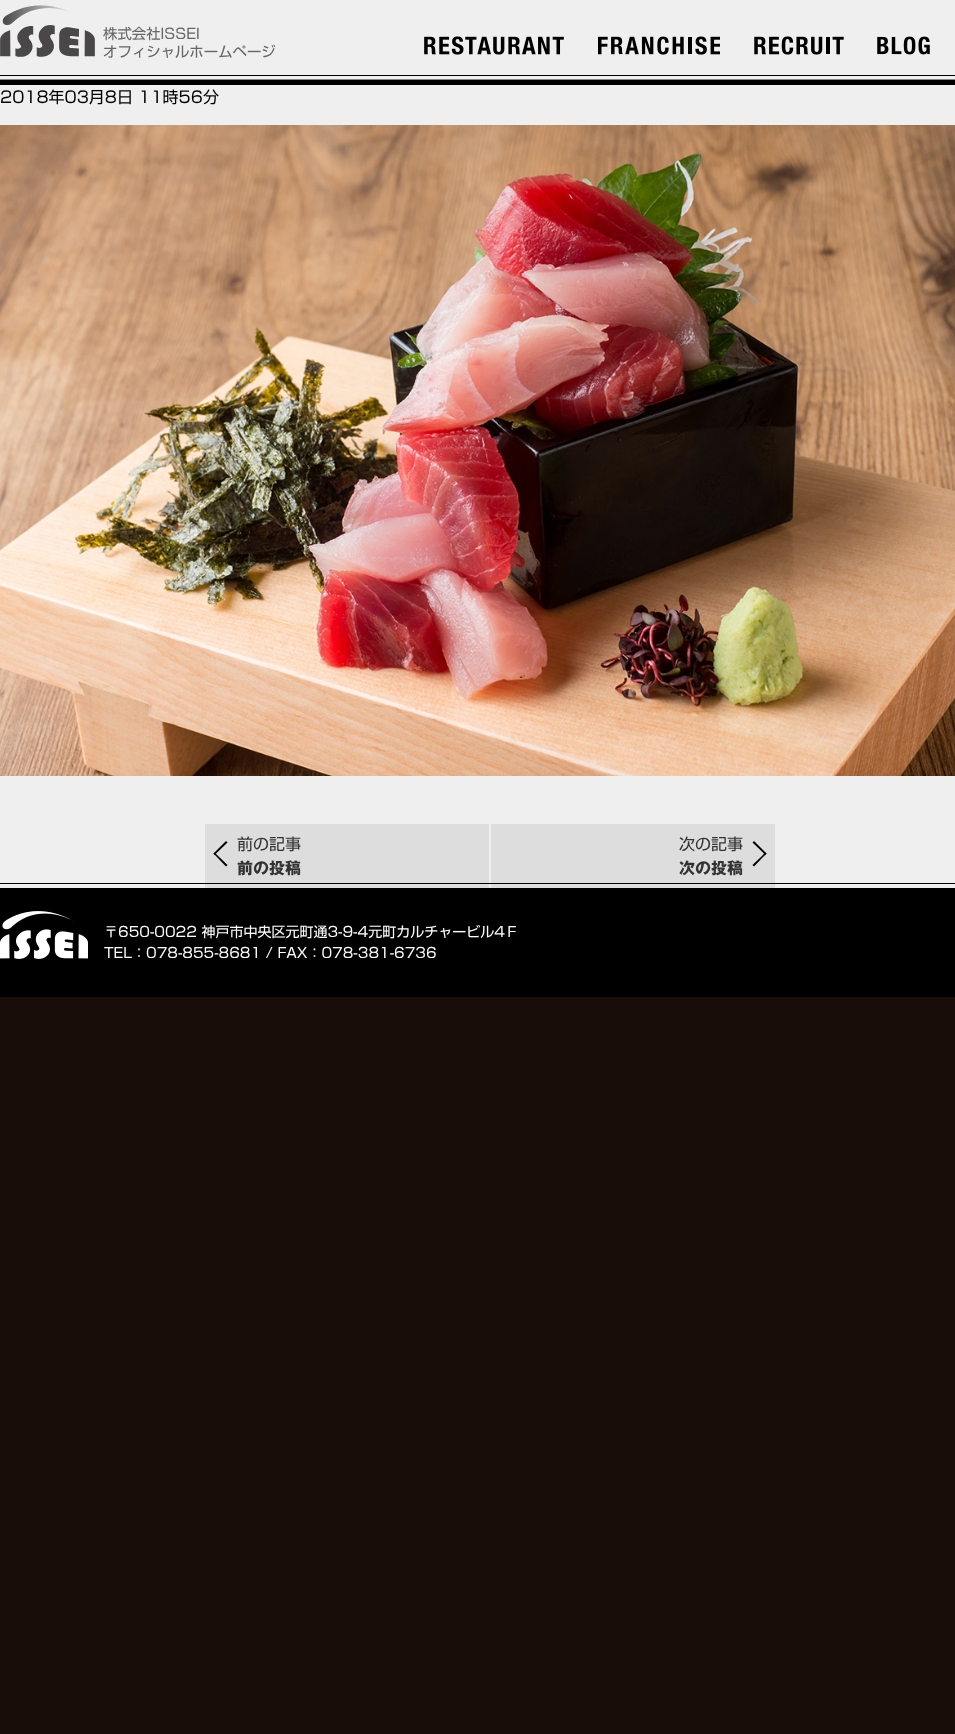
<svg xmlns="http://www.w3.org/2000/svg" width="955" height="1734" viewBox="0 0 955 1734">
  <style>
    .t1 { font: 14.4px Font; fill: #666; }
    .t2 { font: 16px Font; fill: #000; }
    .t3 { font: 16px Font; fill: #333; }
    .t4 { font: bold 16px Font; fill: #333; }
    .t5 { font: 14px Font; fill: #fff; }
  </style>
  <rect width="100%" height="100%" fill="#180d09"/>
  <rect x="0" y="0" width="955" height="888" fill="#efefef"/>
  <rect x="0" y="80" width="955" height="5" fill="#000"/>
  <image x="0" y="5" width="95" height="52" href="images/1.png"/>
  <text x="103" y="39" class="t1">株式会社ISSEI</text>
  <text x="103" y="57" class="t1">オフィシャルホームページ</text>
  <image x="424" y="36" width="140" height="19" href="images/2.png"/>
  <image x="598" y="36" width="122" height="19" href="images/3.png"/>
  <image x="754" y="36" width="90" height="19" href="images/4.png"/>
  <image x="877" y="36" width="53" height="19" href="images/5.png"/>
  <rect x="0" y="75" width="955" height="1" fill="#000"/>
  <rect x="0" y="79" width="955" height="1" fill="#868583"/>
  <text x="0" y="103" class="t2">2018年03月8日 11時56分</text>
  <image x="0" y="125" width="955" height="651" href="images/6.png"/>
  <rect x="205" y="824" width="284" height="64" fill="#ddd"/>
  <path d="M213.5 853.5L226 841L227.5 842.5L214.5 855Z" fill="#000"/>
  <path d="M213.5 853.5L214.5 852.5L227.5 865L226 866.5Z" fill="#000"/>
  <text x="237" y="850" class="t3">前の記事</text>
  <text x="237" y="874" class="t4">前の投稿</text>
  <rect x="491" y="824" width="284" height="64" fill="#ddd"/>
  <text x="679" y="850" class="t3">次の記事</text>
  <path d="M766.5 853.5L754 866.5L752.5 865L765.5 852.5Z" fill="#000"/>
  <path d="M766.5 853.5L765.5 855L752.5 842.5L754 841Z" fill="#000"/>
  <text x="679" y="874" class="t4">次の投稿</text>
  <rect x="0" y="888" width="955" height="109" fill="#000"/>
  <rect x="0" y="883" width="955" height="1" fill="#000"/>
  <image x="0" y="911" width="88" height="48" href="images/7.png"/>
  <text x="104" y="937" class="t5">〒650-0022 神戸市中央区元町通3-9-4元町カルチャービル4Ｆ</text>
  <text x="104" y="958" class="t5">TEL：078-855-8681 / FAX：078-381-6736</text>
</svg>
